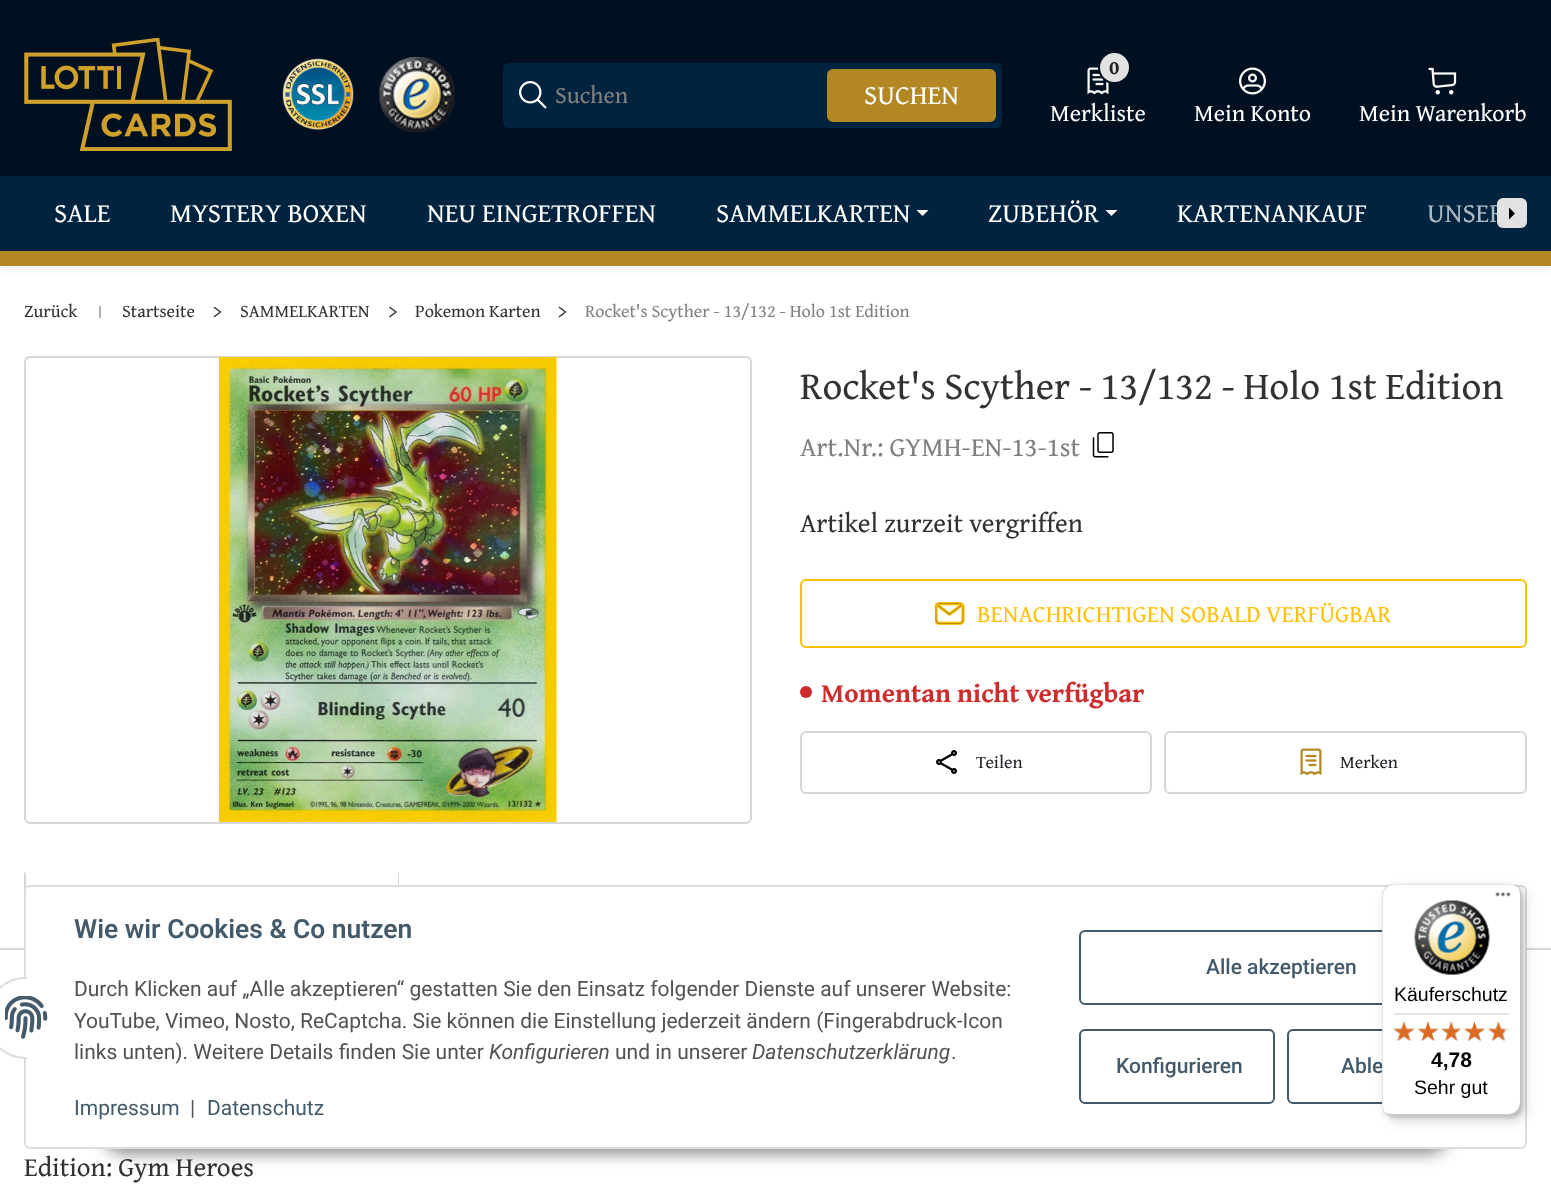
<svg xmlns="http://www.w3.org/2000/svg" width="1551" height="1197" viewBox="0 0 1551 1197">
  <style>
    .t1 { font: 24px Gentium Book Plus; fill: #808080; }
    .t2 { font: 27px Gentium Book Plus; fill: #fff; }
    .t3 { font: bold 20px Gentium Book Plus; fill: #222; }
    .t4 { font: 24px Gentium Book Plus; fill: #fff; }
    .t5 { font: 27px Gentium Book Plus; fill: #adb9c2; }
    .t6 { font: 18px Gentium Book Plus; fill: #323232; }
    .t7 { font: 18px Gentium Book Plus; fill: #808080; }
    .t8 { font: 39px Gentium Book Plus; fill: #323232; }
    .t9 { font: 27px Gentium Book Plus; fill: #808080; }
    .t10 { font: 27px Gentium Book Plus; fill: #323232; }
    .t11 { font: 24px Gentium Book Plus; fill: #ffc107; }
    .t12 { font: bold 27px Gentium Book Plus; fill: #cf2b2c; }
    .t13 { font: 18px Gentium Book Plus; fill: #212529; }
    .t14 { font: 600 26.4px Roboto; fill: #435a6b; }
    .t15 { font: 21px Roboto; fill: #525252; }
    .t16 { font: italic 21px Roboto; fill: #525252; }
    .t17 { font: 21px Roboto; fill: #435a6b; }
    .t18 { font: 500 21px Roboto; fill: #435a6b; }
    .t19 { font: 19.5px Liberation Sans; fill: #000; }
    .t20 { font: bold 21px Liberation Sans; fill: #000; }
  </style>
  <rect width="100%" height="100%" fill="#fff"/>
  <rect x="0" y="0" width="1551" height="176" fill="#001021"/>
  <image x="24" y="38" width="208" height="113" href="images/1.png"/>
  <image x="282" y="58" width="72" height="72" href="images/2.png"/>
  <image x="379" y="57" width="76" height="75" href="images/3.png"/>
  <rect x="503" y="63" width="499" height="65" rx="6" fill="#00243f"/>
  <image x="519" y="81" width="28" height="28" href="images/4.png"/>
  <text x="555" y="103" class="t1">Suchen</text>
  <rect x="828" y="70" width="167" height="51" rx="5" fill="#b38723" stroke="#b38723" stroke-width="2"/>
  <text x="864" y="104" class="t2">SUCHEN</text>
  <image x="1087" y="67" width="22" height="28" href="images/5.png"/>
  <circle cx="1114.5" cy="67.5" r="15.5" fill="#e2e2e2" stroke="#001021" stroke-width="2"/>
  <text x="1109" y="74" class="t3">0</text>
  <text x="1050" y="121" class="t4">Merkliste</text>
  <image x="1239" y="67" width="27" height="28" href="images/6.png"/>
  <text x="1194" y="121" class="t4">Mein Konto</text>
  <image x="1428" y="67" width="29" height="28" href="images/7.png"/>
  <text x="1359" y="121" class="t4">Mein Warenkorb</text>
  <rect x="0" y="176" width="1551" height="75" fill="#00243f"/>
  <text x="54" y="222" class="t2">SALE</text>
  <text x="170" y="222" class="t2">MYSTERY BOXEN</text>
  <text x="427" y="222" class="t2">NEU EINGETROFFEN</text>
  <text x="716" y="222" class="t2">SAMMELKARTEN</text>
  <path d="M916.5 210H928.5L922.5 216Z" fill="#fff"/>
  <text x="988" y="222" class="t2">ZUBEHÖR</text>
  <path d="M1105.5 210H1117.5L1111.5 216Z" fill="#fff"/>
  <text x="1177" y="222" class="t2">KARTENANKAUF</text>
  <text x="1427" y="222" class="t5">UNSER</text>
  <rect x="1497" y="198" width="30" height="30" rx="6" fill="#e2e2e2"/>
  <path d="M1509 219.5V207.5L1515 213.5Z" fill="#000"/>
  <rect x="0" y="254" width="1551" height="15" fill="#00000012" filter="blur(4.5px)"/>
  <rect x="0" y="251" width="1551" height="15" fill="#b38724"/>
  <text x="24" y="317" class="t6">Zurück</text>
  <rect x="99" y="306" width="2" height="12" fill="#b1b1b1"/>
  <text x="122" y="317" class="t6">Startseite</text>
  <path d="M214.5 316.5L220.5 312L214.5 307.5" fill="none" stroke="#323232" stroke-width="1.5" stroke-linecap="round" stroke-linejoin="round"/>
  <text x="240" y="317" class="t6">SAMMELKARTEN</text>
  <path d="M390 316.5L396 312L390 307.5" fill="none" stroke="#323232" stroke-width="1.5" stroke-linecap="round" stroke-linejoin="round"/>
  <text x="415" y="317" class="t6">Pokemon Karten</text>
  <path d="M559.5 316.5L565.5 312L559.5 307.5" fill="none" stroke="#323232" stroke-width="1.5" stroke-linecap="round" stroke-linejoin="round"/>
  <text x="585" y="317" class="t7">Rocket's Scyther - 13/132 - Holo 1st Edition</text>
  <rect x="25" y="357" width="726" height="466" rx="5" fill="none" stroke="#d7d7d7" stroke-width="2"/>
  <image x="219" y="357" width="338" height="465" href="images/8.png"/>
  <text x="800" y="399" class="t8">Rocket's Scyther - 13/132 - Holo 1st Edition</text>
  <text x="800" y="456" class="t9">Art.Nr.: GYMH-EN-13-1st</text>
  <image x="1092" y="432" width="22" height="26" href="images/9.png"/>
  <text x="800" y="532" class="t10">Artikel zurzeit vergriffen</text>
  <rect x="801" y="580" width="725" height="67" rx="5" fill="none" stroke="#ffc107" stroke-width="2"/>
  <image x="935" y="602" width="30" height="23" href="images/10.png"/>
  <text x="977" y="622" class="t11">BENACHRICHTIGEN SOBALD VERFÜGBAR</text>
  <circle cx="806" cy="692" r="6" fill="#cf2b2c"/>
  <text x="821" y="702" class="t12">Momentan nicht verfügbar</text>
  <rect x="801" y="732" width="350" height="61" rx="5" fill="none" stroke="#d7d7d7" stroke-width="2"/>
  <image x="936" y="750" width="21" height="24" href="images/11.png"/>
  <text x="976" y="768" class="t13">Teilen</text>
  <rect x="1165" y="732" width="361" height="61" rx="5" fill="none" stroke="#d7d7d7" stroke-width="2"/>
  <image x="1300" y="748" width="22" height="28" href="images/12.png"/>
  <text x="1340" y="768" class="t13">Merken</text>
  <path d="M24 950V872L26 873V948Z" fill="#d7d7d7"/>
  <path d="M398 950V872L399 873V948Z" fill="#d7d7d7"/>
  <rect x="0" y="948" width="1551" height="2" fill="#d7d7d7"/>
  <text x="24" y="1176" class="t10">Edition: Gym Heroes</text>
  <rect x="101" y="1106" width="1350" height="48" rx="24" fill="#00000073" filter="blur(7.5px)"/>
  <rect x="25" y="886" width="1501" height="262" rx="5" fill="#fff" stroke="#ddd" stroke-width="2"/>
  <rect x="-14" y="978" width="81" height="80" rx="40" fill="#fff" stroke="#ddd" stroke-width="2"/>
  <rect x="27" y="977" width="41" height="82" fill="#fff"/>
  <image x="5" y="996" width="43" height="43" href="images/13.png"/>
  <text x="74" y="938" class="t14">Wie wir Cookies &amp; Co nutzen</text>
  <text x="74" y="996" class="t15">Durch Klicken auf „Alle akzeptieren“ gestatten Sie den Einsatz folgender Dienste auf unserer Website:</text>
  <text x="74" y="1028" class="t15">YouTube, Vimeo, Nosto, ReCaptcha. Sie können die Einstellung jederzeit ändern (Fingerabdruck-Icon</text>
  <text x="74" y="1059" class="t15">links unten). Weitere Details finden Sie unter</text>
  <text x="489" y="1059" class="t16">Konfigurieren</text>
  <text x="615" y="1059" class="t15">und in unserer</text>
  <text x="752" y="1059" class="t16">Datenschutzerklärung</text>
  <text x="951" y="1059" class="t15">.</text>
  <text x="74" y="1115" class="t17">Impressum</text>
  <text x="190" y="1115" class="t15">|</text>
  <text x="207" y="1115" class="t17">Datenschutz</text>
  <rect x="1080" y="931" width="403" height="73" rx="5" fill="none" stroke="#435a6b" stroke-width="2"/>
  <text x="1206" y="974" class="t18">Alle akzeptieren</text>
  <rect x="1080" y="1030" width="194" height="73" rx="5" fill="none" stroke="#435a6b" stroke-width="2"/>
  <text x="1116" y="1073" class="t18">Konfigurieren</text>
  <rect x="1288" y="1030" width="195" height="73" rx="5" fill="none" stroke="#435a6b" stroke-width="2"/>
  <text x="1341" y="1073" class="t18">Able</text>
  <rect x="1386" y="888" width="140" height="233" rx="12" fill="#00000026" filter="blur(6px)"/>
  <rect x="1383" y="885" width="140" height="233" rx="12" fill="#00000026" filter="blur(1.5px)"/>
  <rect x="1382" y="884" width="139" height="232" rx="12" fill="#fff"/>
  <path d="M1395 885H1510C1513 885 1515 886 1517 887C1515 885 1512 884 1509 884H1394C1387 884 1382 889 1382 896V1104C1382 1106 1383 1109 1384 1111L1383 1106V897C1383 890 1388 885 1395 885Z" fill="#0000001a"/>
  <path d="M1385 1112C1387 1114 1390 1116 1394 1116H1509C1516 1116 1521 1111 1521 1104V896C1521 894 1520 891 1519 890L1520 894V1102C1520 1109 1514 1114 1508 1114H1392C1389 1114 1387 1113 1385 1112Z" fill="#00000033"/>
  <path d="M1386 1113C1388 1115 1391 1116 1394 1116H1509C1516 1116 1521 1111 1521 1104V896C1521 893 1520 890 1518 888C1519 890 1520 892 1520 895V1103C1520 1110 1515 1115 1508 1115H1393C1390 1115 1388 1114 1386 1113Z" fill="#32323233"/>
  <path d="M1386 1113C1388 1115 1391 1116 1394 1116H1509C1516 1116 1521 1111 1521 1104V896C1521 893 1520 890 1518 888C1519 890 1520 892 1520 895V1103C1520 1110 1515 1115 1508 1115H1393C1390 1115 1388 1114 1386 1113Z" fill="#ffffff4d"/>
  <image x="1495" y="892" width="16" height="5" href="images/14.png"/>
  <image x="1414" y="900" width="76" height="75" href="images/15.png"/>
  <text x="1394" y="1001" class="t19">Käuferschutz</text>
  <rect x="1394" y="1013" width="115" height="2" fill="#e5e5e5"/>
  <image x="1394" y="1022" width="20" height="19" href="images/21.png"/>
  <image x="1393" y="1021" width="22" height="20" href="images/16.png"/>
  <image x="1418" y="1021" width="20" height="20" href="images/22.png"/>
  <image x="1418" y="1021" width="20" height="20" href="images/17.png"/>
  <image x="1441" y="1021" width="20" height="20" href="images/23.png"/>
  <image x="1441" y="1021" width="20" height="20" href="images/18.png"/>
  <image x="1464" y="1021" width="21" height="20" href="images/24.png"/>
  <image x="1464" y="1021" width="21" height="20" href="images/19.png"/>
  <image x="1488" y="1022" width="21" height="19" href="images/25.png"/>
  <image x="1488" y="1021" width="17" height="20" href="images/20.png"/>
  <text x="1431" y="1067" class="t20">4,78</text>
  <text x="1414" y="1094" class="t19">Sehr gut</text>
</svg>
